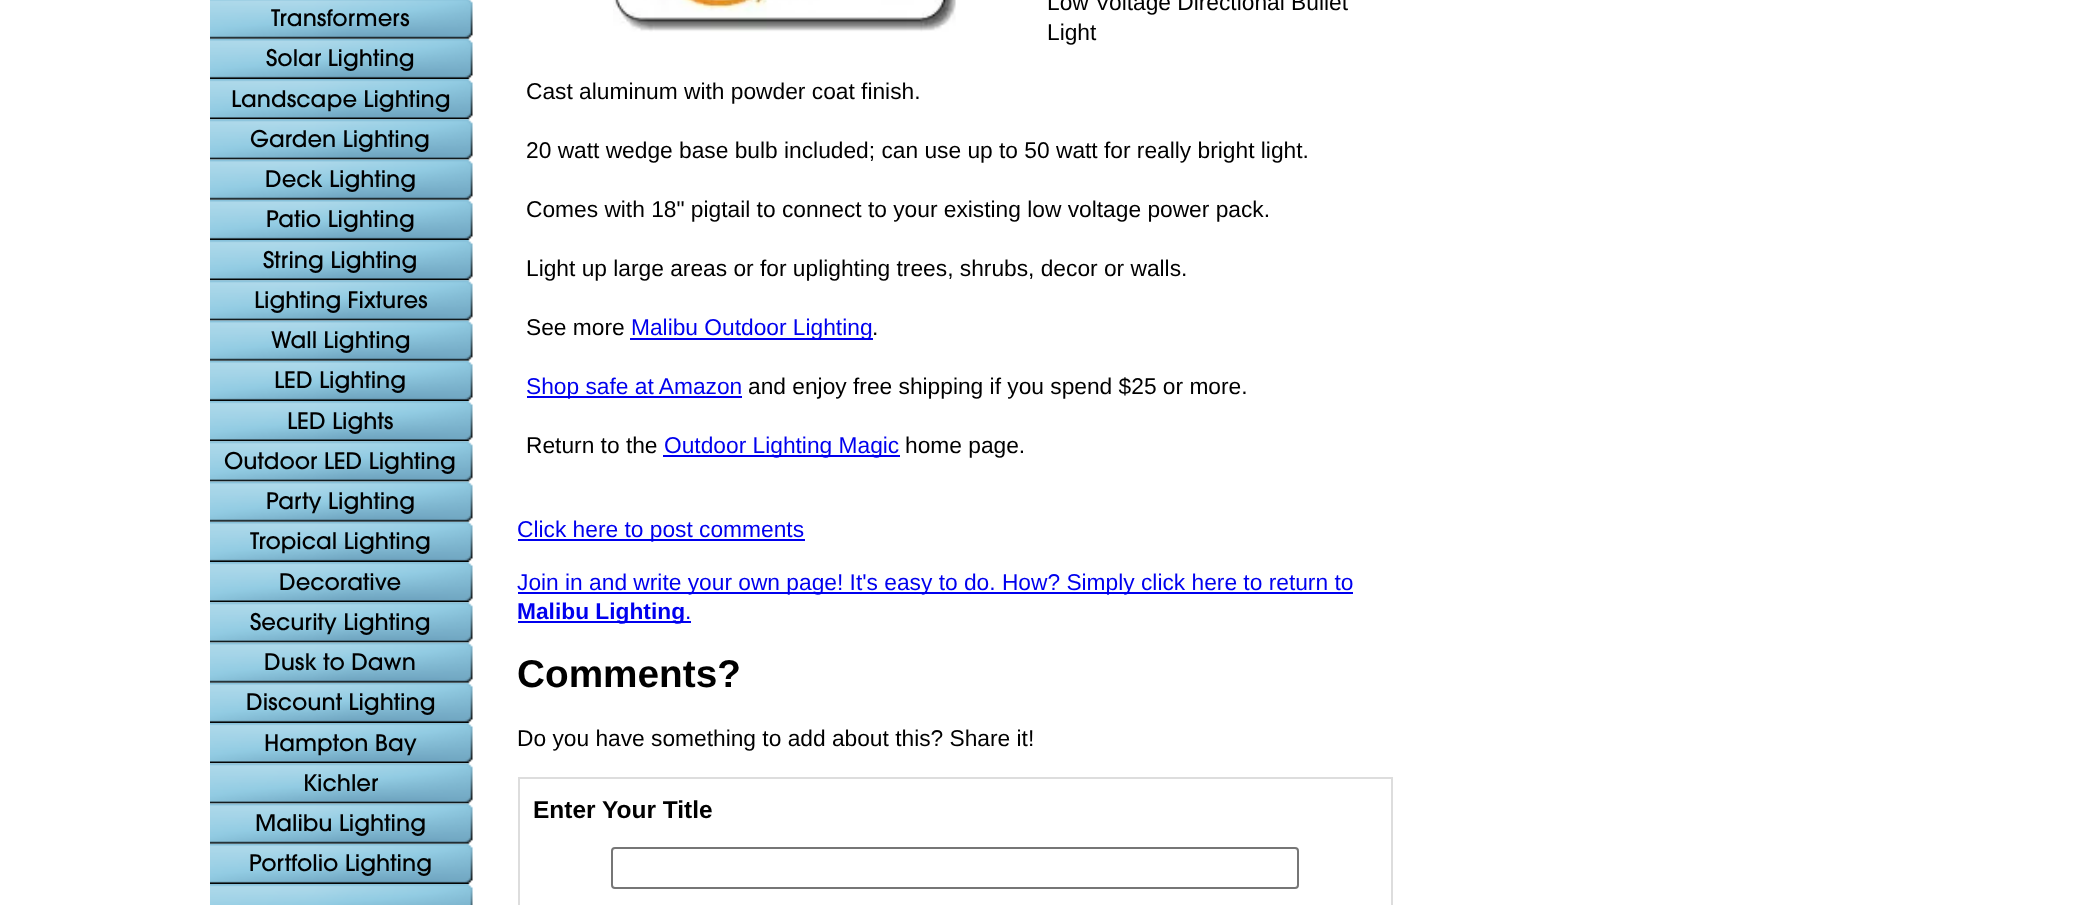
<svg xmlns="http://www.w3.org/2000/svg" width="2097" height="905" viewBox="0 0 2097 905">
  <style>
    .t1 { font: 22.75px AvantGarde; fill: #000; }
    .t2 { font: 22.75px Liberation Sans; fill: #000; }
    .t3 { font: 22.75px Liberation Sans; fill: #00e; }
    .t4 { font: bold 22.75px Liberation Sans; fill: #00e; }
    .t5 { font: bold 38.75px Liberation Sans; fill: #000; }
    .t6 { font: bold 24.5px Liberation Sans; fill: #000; }
  </style>
  <rect width="100%" height="100%" fill="#fff"/>
  <image x="210" y="0" width="263" height="39" href="images/1.png"/>
  <text x="271" y="26" class="t1">Transformers</text>
  <image x="210" y="38" width="263" height="41" href="images/2.png"/>
  <text x="266" y="66" class="t1">Solar Lighting</text>
  <image x="210" y="79" width="263" height="41" href="images/3.png"/>
  <text x="231" y="107" class="t1">Landscape Lighting</text>
  <image x="210" y="119" width="263" height="41" href="images/4.png"/>
  <text x="250" y="147" class="t1">Garden Lighting</text>
  <image x="210" y="159" width="263" height="41" href="images/5.png"/>
  <text x="265" y="187" class="t1">Deck Lighting</text>
  <image x="210" y="199" width="263" height="41" href="images/2.png"/>
  <text x="266" y="227" class="t1">Patio Lighting</text>
  <image x="210" y="240" width="263" height="41" href="images/3.png"/>
  <text x="263" y="268" class="t1">String Lighting</text>
  <image x="210" y="280" width="263" height="41" href="images/4.png"/>
  <text x="254" y="308" class="t1">Lighting Fixtures</text>
  <image x="210" y="320" width="263" height="41" href="images/5.png"/>
  <text x="271" y="348" class="t1">Wall Lighting</text>
  <image x="210" y="360" width="263" height="41" href="images/2.png"/>
  <text x="274" y="388" class="t1">LED Lighting</text>
  <image x="210" y="401" width="263" height="41" href="images/3.png"/>
  <text x="287" y="429" class="t1">LED Lights</text>
  <image x="210" y="441" width="263" height="41" href="images/4.png"/>
  <text x="224" y="469" class="t1">Outdoor LED Lighting</text>
  <image x="210" y="481" width="263" height="41" href="images/5.png"/>
  <text x="266" y="509" class="t1">Party Lighting</text>
  <image x="210" y="521" width="263" height="41" href="images/2.png"/>
  <text x="250" y="549" class="t1">Tropical Lighting</text>
  <image x="210" y="562" width="263" height="41" href="images/3.png"/>
  <text x="279" y="590" class="t1">Decorative</text>
  <image x="210" y="602" width="263" height="41" href="images/4.png"/>
  <text x="250" y="630" class="t1">Security Lighting</text>
  <image x="210" y="642" width="263" height="41" href="images/5.png"/>
  <text x="264" y="670" class="t1">Dusk to Dawn</text>
  <image x="210" y="682" width="263" height="41" href="images/2.png"/>
  <text x="246" y="710" class="t1">Discount Lighting</text>
  <image x="210" y="723" width="263" height="41" href="images/3.png"/>
  <text x="264" y="751" class="t1">Hampton Bay</text>
  <image x="210" y="763" width="263" height="41" href="images/4.png"/>
  <text x="303" y="791" class="t1">Kichler</text>
  <image x="210" y="803" width="263" height="41" href="images/5.png"/>
  <text x="255" y="831" class="t1">Malibu Lighting</text>
  <image x="210" y="843" width="263" height="41" href="images/2.png"/>
  <text x="249" y="871" class="t1">Portfolio Lighting</text>
  <image x="210" y="884" width="263" height="21" href="images/6.png"/>
  <image x="613" y="0" width="343" height="32" href="images/7.png"/>
  <text x="1047" y="10" class="t2">Low Voltage Directional Bullet</text>
  <text x="1047" y="40" class="t2">Light</text>
  <text x="526" y="99" class="t2">Cast aluminum with powder coat finish.</text>
  <text x="526" y="158" class="t2">20 watt wedge base bulb included; can use up to 50 watt for really bright light.</text>
  <text x="526" y="217" class="t2">Comes with 18" pigtail to connect to your existing low voltage power pack.</text>
  <text x="526" y="276" class="t2">Light up large areas or for uplighting trees, shrubs, decor or walls.</text>
  <text x="526" y="335" class="t2">See more</text>
  <rect x="630" y="338" width="243" height="2" fill="#00e"/>
  <text x="631" y="335" class="t3">Malibu Outdoor Lighting</text>
  <text x="872" y="335" class="t2">.</text>
  <rect x="527" y="396" width="215" height="2" fill="#00e"/>
  <text x="526" y="394" class="t3">Shop safe at Amazon</text>
  <text x="748" y="394" class="t2">and enjoy free shipping if you spend $25 or more.</text>
  <text x="526" y="453" class="t2">Return to the</text>
  <rect x="663" y="455" width="237" height="2" fill="#00e"/>
  <text x="664" y="453" class="t3">Outdoor Lighting Magic</text>
  <text x="905" y="453" class="t2">home page.</text>
  <rect x="518" y="539" width="287" height="2" fill="#00e"/>
  <text x="517" y="537" class="t3">Click here to post comments</text>
  <rect x="518" y="592" width="835" height="2" fill="#00e"/>
  <text x="517" y="590" class="t3">Join in and write your own page! It's easy to do. How? Simply click here to return to</text>
  <rect x="518" y="621" width="173" height="2" fill="#00e"/>
  <text x="517" y="619" class="t4">Malibu Lighting</text>
  <text x="685" y="619" class="t3">.</text>
  <text x="517" y="687" class="t5">Comments?</text>
  <text x="517" y="746" class="t2">Do you have something to add about this? Share it!</text>
  <rect x="519" y="778" width="873" height="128" fill="none" stroke="#ddd" stroke-width="2"/>
  <text x="533" y="818" class="t6">Enter Your Title</text>
  <rect x="612" y="848" width="686" height="40" rx="3" fill="none" stroke="#767676" stroke-width="2"/>
</svg>
